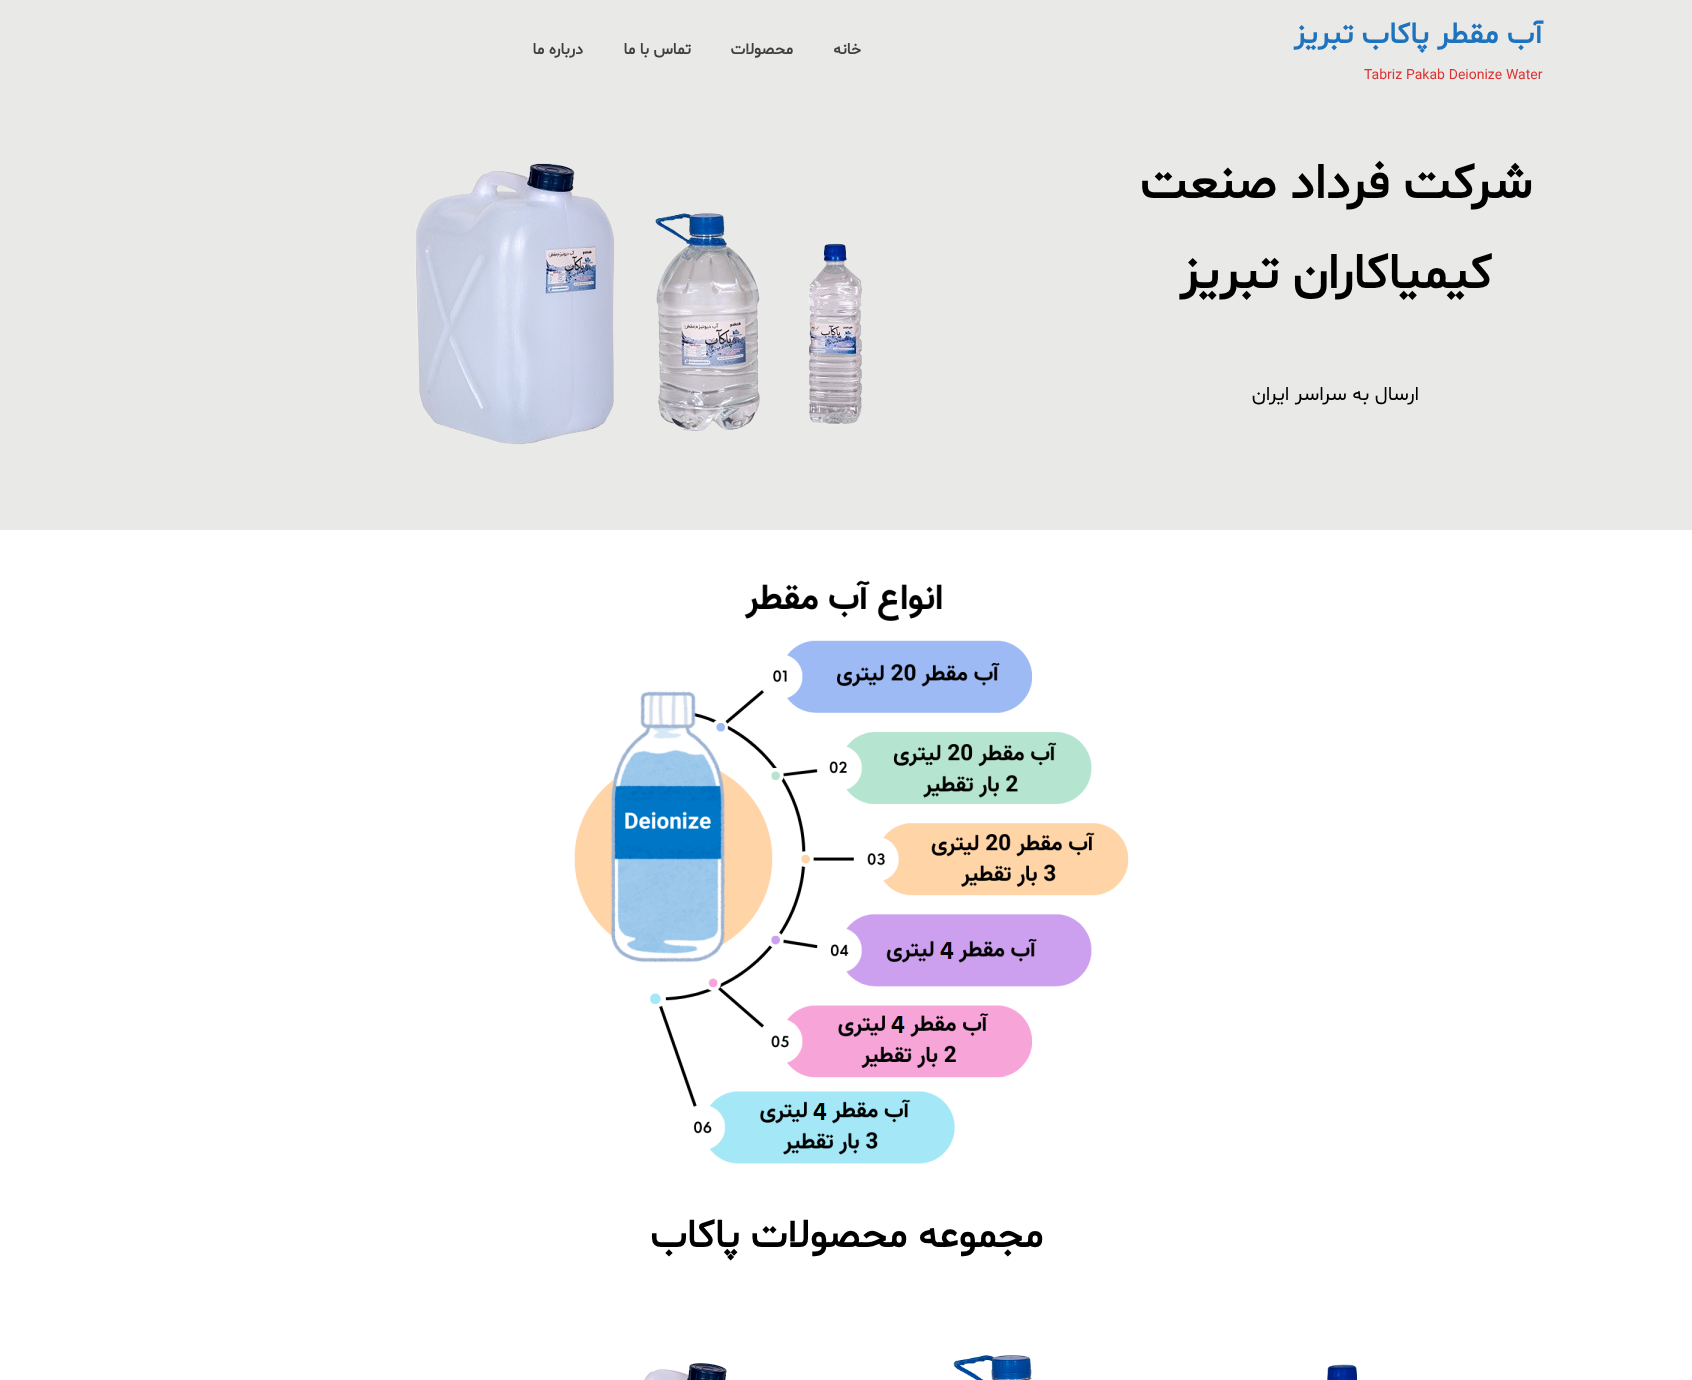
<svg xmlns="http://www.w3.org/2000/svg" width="1692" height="1380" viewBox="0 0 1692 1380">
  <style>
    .t1 { font: bold 30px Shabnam; direction: rtl; fill: #1e73be; }
    .t2 { font: 14px Shabnam; fill: #d33; }
    .t3 { font: bold 16px Shabnam; direction: rtl; fill: #404040; }
    .t4 { font: bold 50px Shabnam; direction: rtl; fill: #000; }
    .t5 { font: 20px Shabnam; direction: rtl; fill: #000; }
    .t6 { font: bold 40px Shabnam; direction: rtl; fill: #000; }
  </style>
  <rect width="100%" height="100%" fill="#e9e9e7"/>
  <text x="1542" y="43" class="t1">آب مقطر پاکاب تبریز</text>
  <text x="1364" y="79" class="t2">Tabriz Pakab Deionize Water</text>
  <text x="861" y="54" class="t3">خانه</text>
  <text x="793" y="54" class="t3">محصولات</text>
  <text x="691" y="54" class="t3">تماس با ما</text>
  <text x="583" y="54" class="t3">درباره ما</text>
  <text x="1532" y="198" class="t4">شرکت فرداد صنعت</text>
  <text x="1492" y="288" class="t4">کیمیاکاران تبریز</text>
  <text x="1419" y="400" class="t5">ارسال به سراسر ایران</text>
  <image x="415" y="163" width="447" height="282" href="images/1.png"/>
  <rect x="0" y="530" width="1692" height="850" fill="#fff"/>
  <image x="574" y="580" width="555" height="584" href="images/2.png"/>
  <text x="1043" y="1247" class="t6">مجموعه محصولات پاکاب</text>
  <image x="1327" y="1364" width="31" height="16" href="images/3.png"/>
  <image x="953" y="1355" width="79" height="25" href="images/4.png"/>
  <image x="644" y="1363" width="83" height="17" href="images/5.png"/>
</svg>
